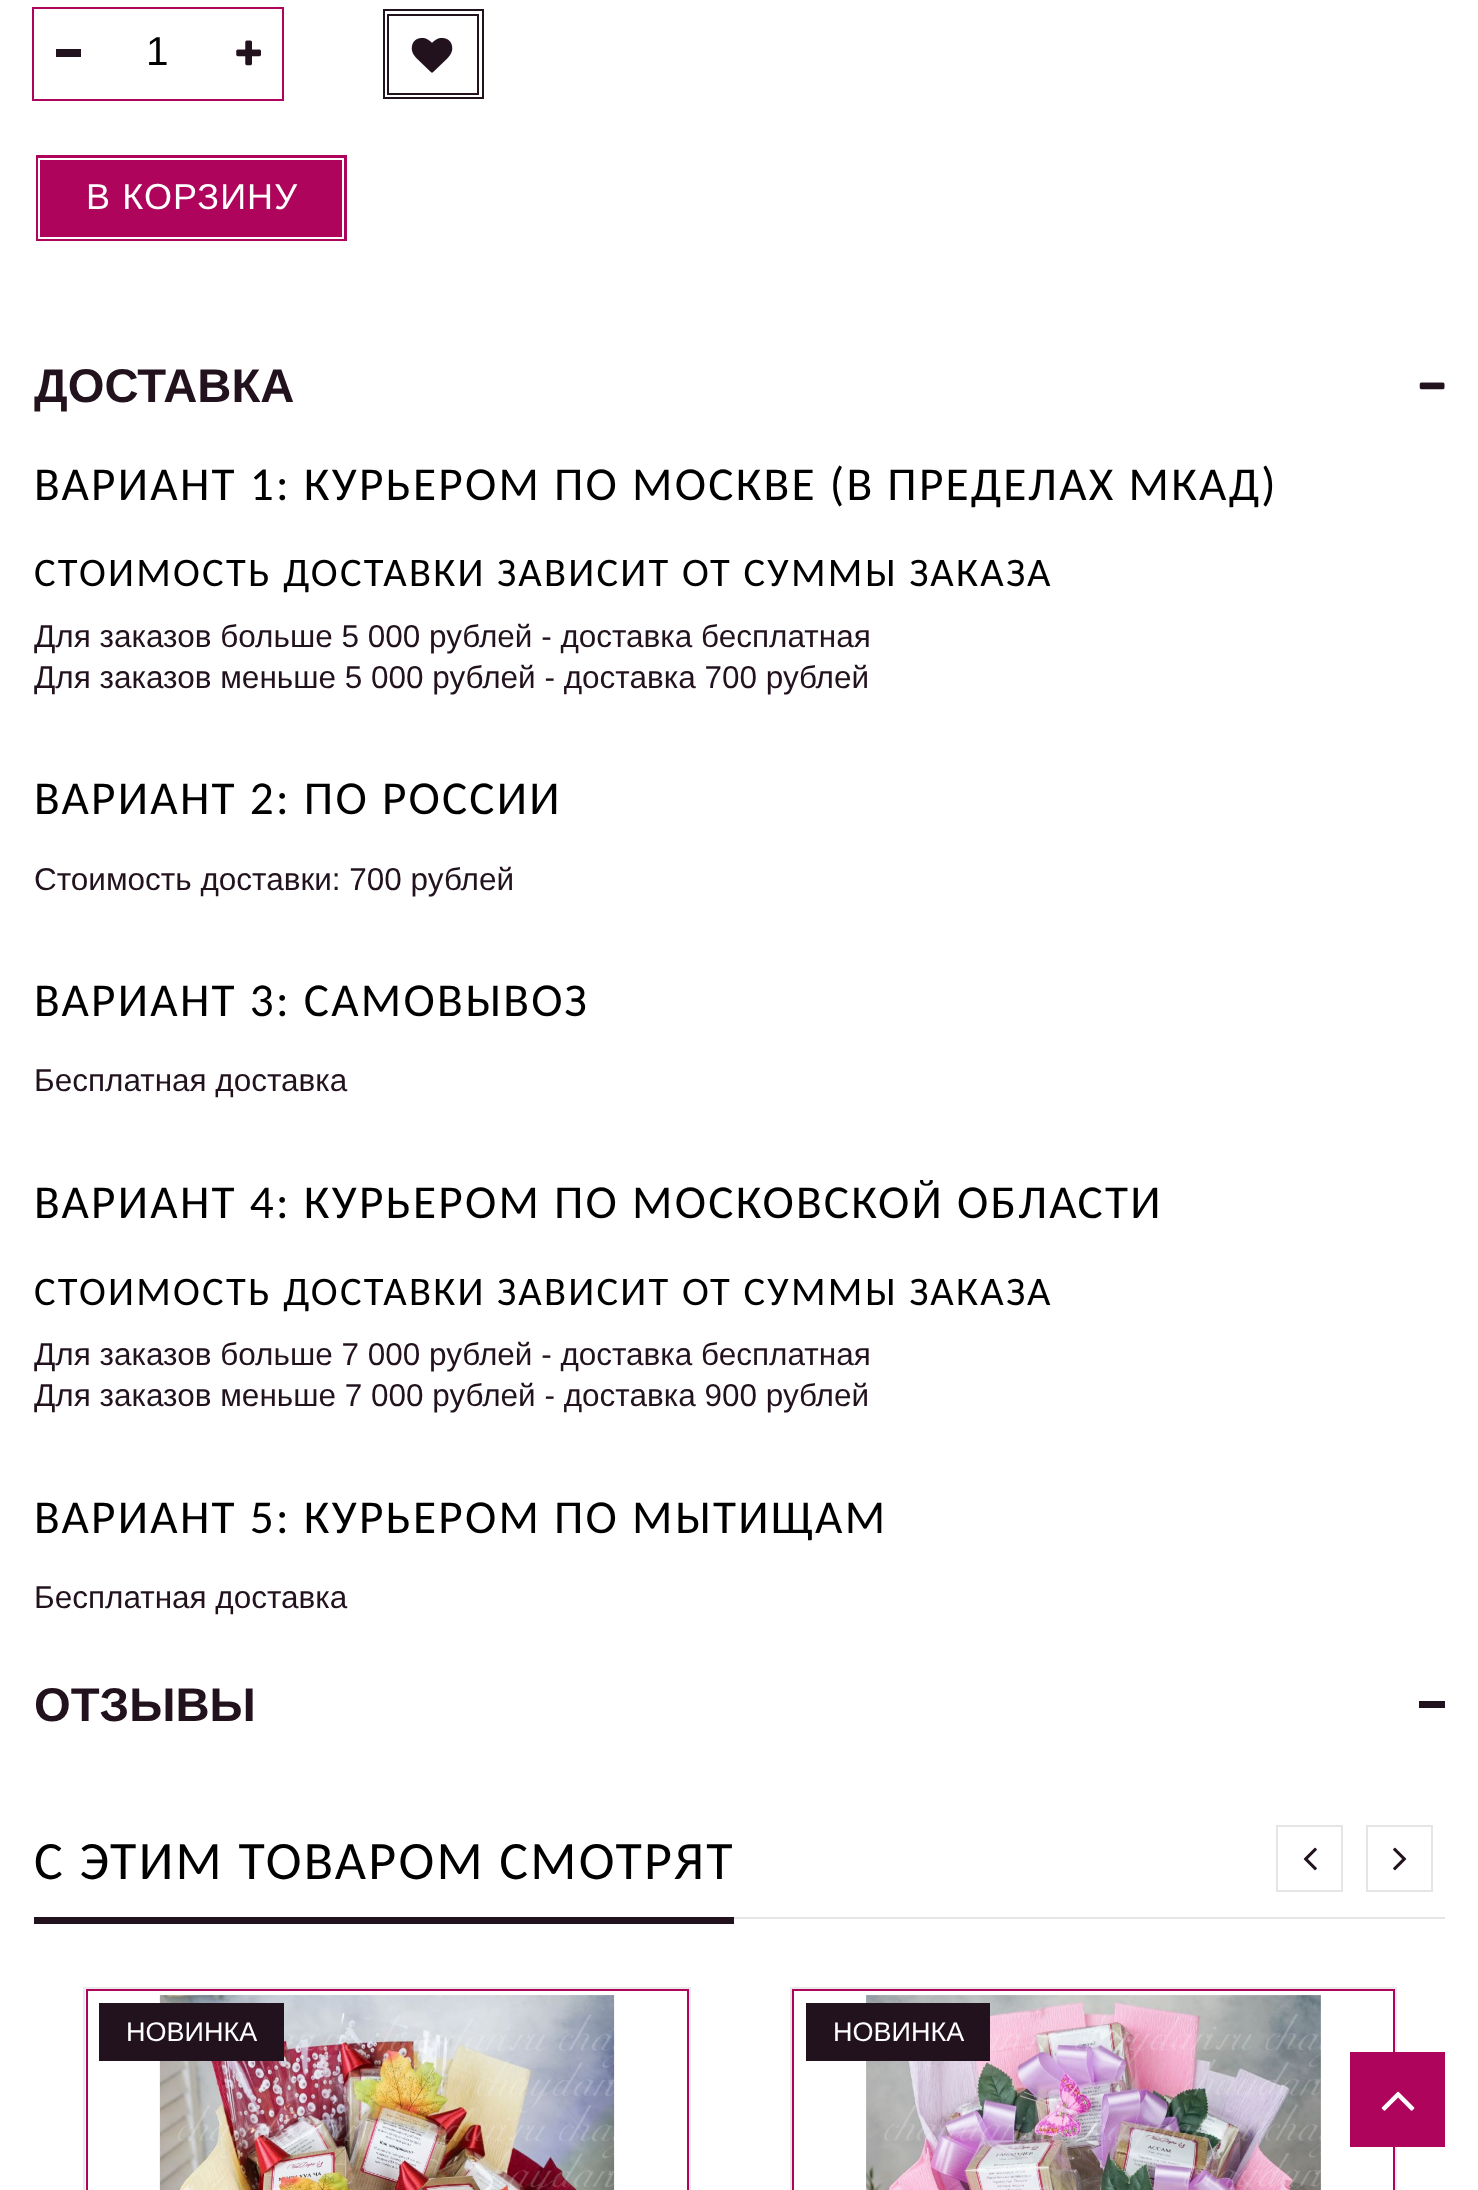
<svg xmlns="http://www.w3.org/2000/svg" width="1478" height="2190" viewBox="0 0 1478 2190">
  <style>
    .t1 { font: 40.5px Liberation Sans; fill: #000; }
    .t2 { font: 36px Liberation Sans; letter-spacing: 1.1px; fill: #fff; }
    .t3 { font: bold 47.25px Liberation Sans; fill: #22121e; }
    .t4 { font: 47.25px Carlito; letter-spacing: 2.25px; fill: #000; }
    .t5 { font: 40.5px Carlito; letter-spacing: 2.25px; fill: #000; }
    .t6 { font: 31.5px Liberation Sans; fill: #22121e; }
    .t7 { font: 54px Carlito; letter-spacing: 2.25px; fill: #000; }
    .t8 { font: 27px Liberation Sans; fill: #fff; }
  </style>
  <rect width="100%" height="100%" fill="#fff"/>
  <rect x="56" y="49" width="25" height="8" fill="#22121e"/>
  <image x="236" y="40" width="25" height="26" href="images/1.png"/>
  <rect x="33" y="8" width="250" height="92" fill="none" stroke="#ae045c" stroke-width="2"/>
  <text x="146" y="65" class="t1">1</text>
  <rect x="384" y="10" width="99" height="88" fill="none" stroke="#22121e" stroke-width="2"/>
  <rect x="388" y="15" width="90" height="79" fill="none" stroke="#22121e" stroke-width="2"/>
  <image x="411" y="37" width="42" height="36" href="images/2.png"/>
  <rect x="36" y="155" width="311" height="86" fill="#ae045c"/>
  <rect x="39" y="159" width="304" height="79" fill="none" stroke="#fff" stroke-width="2"/>
  <text x="86" y="209" class="t2">В КОРЗИНУ</text>
  <text x="34" y="402" class="t3">ДОСТАВКА</text>
  <image x="1419" y="382" width="26" height="8" href="images/3.png"/>
  <text x="34" y="500" class="t4">ВАРИАНТ 1: КУРЬЕРОМ ПО МОСКВЕ (В ПРЕДЕЛАХ МКАД)</text>
  <text x="34" y="586" class="t5">СТОИМОСТЬ ДОСТАВКИ ЗАВИСИТ ОТ СУММЫ ЗАКАЗА</text>
  <text x="34" y="647" class="t6">Для заказов больше 5 000 рублей - доставка бесплатная</text>
  <text x="34" y="688" class="t6">Для заказов меньше 5 000 рублей - доставка 700 рублей</text>
  <text x="34" y="814" class="t4">ВАРИАНТ 2: ПО РОССИИ</text>
  <text x="34" y="890" class="t6">Стоимость доставки: 700 рублей</text>
  <text x="34" y="1016" class="t4">ВАРИАНТ 3: САМОВЫВОЗ</text>
  <text x="34" y="1091" class="t6">Бесплатная доставка</text>
  <text x="34" y="1218" class="t4">ВАРИАНТ 4: КУРЬЕРОМ ПО МОСКОВСКОЙ ОБЛАСТИ</text>
  <text x="34" y="1305" class="t5">СТОИМОСТЬ ДОСТАВКИ ЗАВИСИТ ОТ СУММЫ ЗАКАЗА</text>
  <text x="34" y="1365" class="t6">Для заказов больше 7 000 рублей - доставка бесплатная</text>
  <text x="34" y="1406" class="t6">Для заказов меньше 7 000 рублей - доставка 900 рублей</text>
  <text x="34" y="1533" class="t4">ВАРИАНТ 5: КУРЬЕРОМ ПО МЫТИЩАМ</text>
  <text x="34" y="1608" class="t6">Бесплатная доставка</text>
  <text x="34" y="1721" class="t3">ОТЗЫВЫ</text>
  <rect x="1419" y="1701" width="26" height="7" fill="#22121e"/>
  <rect x="734" y="1917" width="711" height="2" fill="#e5e5e5"/>
  <text x="34" y="1879" class="t7">С ЭТИМ ТОВАРОМ СМОТРЯТ</text>
  <rect x="34" y="1917" width="700" height="7" fill="#22121e"/>
  <rect x="1277" y="1826" width="65" height="65" fill="none" stroke="#e5e5e5" stroke-width="2"/>
  <image x="1303" y="1847" width="14" height="24" href="images/4.png"/>
  <rect x="1367" y="1826" width="65" height="65" fill="none" stroke="#e5e5e5" stroke-width="2"/>
  <image x="1393" y="1847" width="14" height="24" href="images/5.png"/>
  <rect x="84" y="1988" width="606" height="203" fill="none" stroke="#eaeaea" stroke-width="2"/>
  <rect x="87" y="1990" width="601" height="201" fill="none" stroke="#ae045c" stroke-width="2"/>
  <image x="159" y="1995" width="456" height="195" href="images/6.png"/>
  <rect x="99" y="2003" width="185" height="58" fill="#22121e"/>
  <text x="126" y="2041" class="t8">НОВИНКА</text>
  <rect x="791" y="1988" width="605" height="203" fill="none" stroke="#eaeaea" stroke-width="2"/>
  <rect x="793" y="1990" width="601" height="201" fill="none" stroke="#ae045c" stroke-width="2"/>
  <image x="866" y="1995" width="455" height="195" href="images/7.png"/>
  <rect x="806" y="2003" width="184" height="58" fill="#22121e"/>
  <text x="833" y="2041" class="t8">НОВИНКА</text>
  <rect x="1350" y="2052" width="95" height="95" fill="#ae045c"/>
  <image x="1381" y="2091" width="34" height="20" href="images/8.png"/>
</svg>
